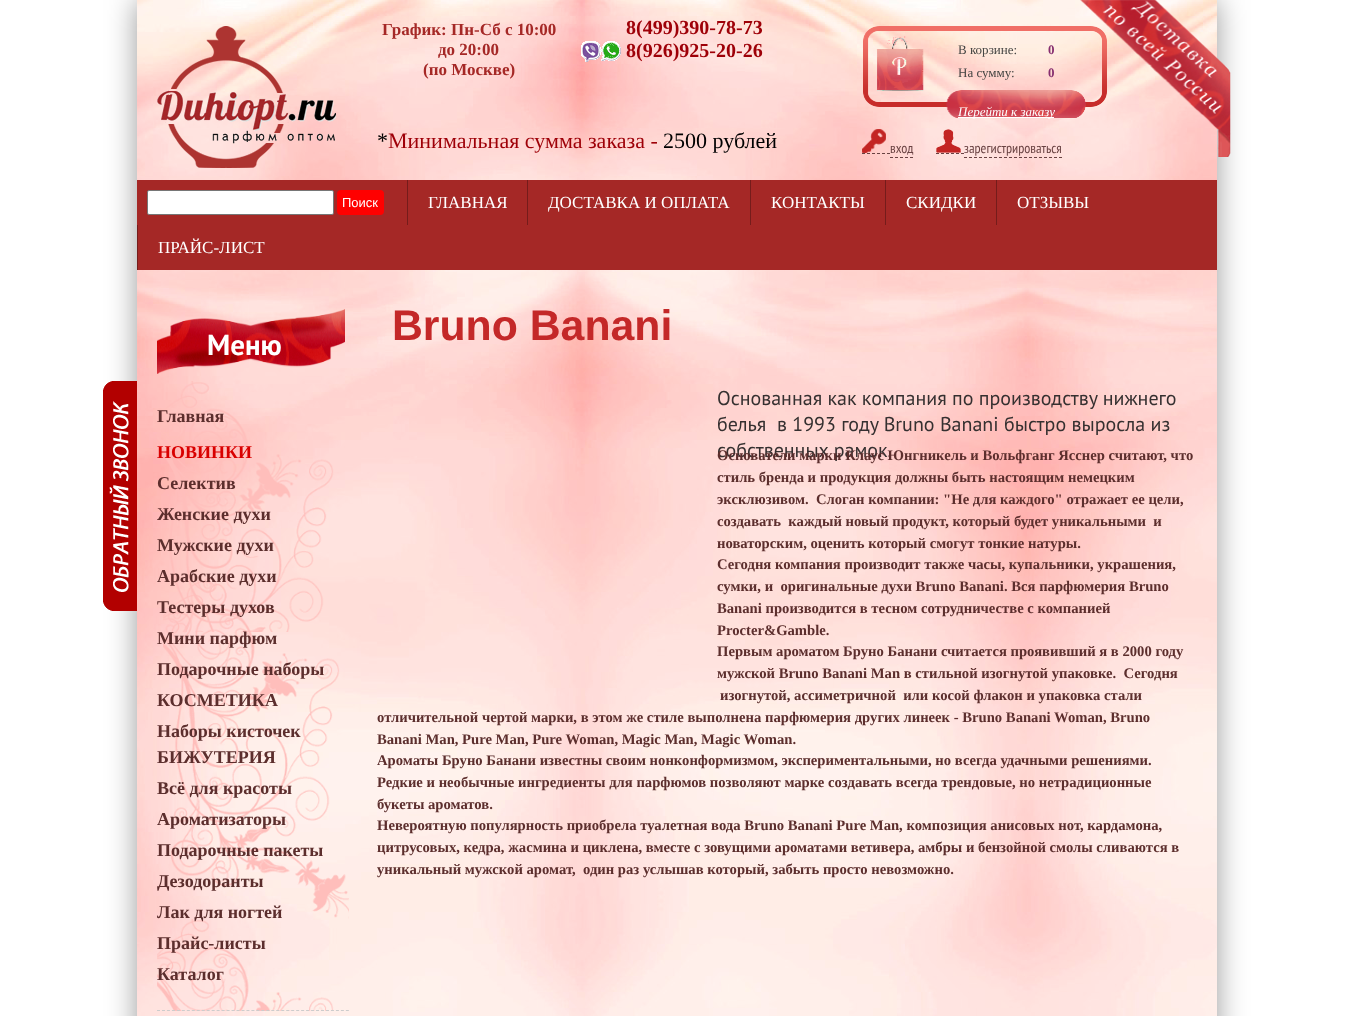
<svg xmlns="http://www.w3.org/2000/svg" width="1353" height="1016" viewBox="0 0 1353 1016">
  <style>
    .t1 { font: bold 17px Liberation Serif; fill: #a52826; }
    .t2 { font: bold 20px Liberation Serif; fill: #9e0008; }
    .t3 { font: 13px Liberation Serif; fill: #454543; }
    .t4 { font: bold 13px Liberation Serif; fill: #872f6f; }
    .t5 { font: italic 13px Liberation Serif; fill: #fff; }
    .t6 { font: 22px Liberation Serif; fill: #000; }
    .t7 { font: 22px Liberation Serif; fill: #9e0008; }
    .t8 { font: 14px PT Sans Narrow; fill: #694242; }
    .t9 { font: 13px Liberation Sans; fill: #fff; }
    .t10 { font: 17px Liberation Serif; fill: #fff; }
    .t11 { font: bold 29px PT Sans; fill: #fff; }
    .t12 { font: bold 18px Liberation Serif; fill: #5c2e2d; }
    .t13 { font: bold 18px Liberation Serif; fill: #d90000; }
    .t14 { font: bold 42.75px Liberation Sans; fill: #c42828; }
    .t15 { font: 20px PT Sans; fill: #353030; }
    .t16 { font: bold 14.67px Liberation Serif; fill: #5c2e2d; }
  </style>
  <rect width="100%" height="100%" fill="#fff"/>
  <rect x="137" y="0" width="1080" height="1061" fill="#00000066" filter="blur(15px)"/>
  <image x="137" y="0" width="1080" height="1016" href="images/1.png"/>
  <image x="157" y="26" width="179" height="142" href="images/2.png"/>
  <text x="382" y="35" class="t1">График: Пн-Сб с 10:00</text>
  <text x="438" y="55" class="t1">до 20:00</text>
  <text x="423" y="75" class="t1">(по Москве)</text>
  <text x="626" y="34" class="t2">8(499)390-78-73</text>
  <image x="581" y="41" width="40" height="21" href="images/3.png"/>
  <text x="626" y="57" class="t2">8(926)925-20-26</text>
  <image x="863" y="26" width="244" height="92" href="images/5.png"/>
  <image x="1080" y="0" width="151" height="157" href="images/4.png"/>
  <text x="958" y="54" class="t3">В корзине:</text>
  <text x="1048" y="54" class="t4">0</text>
  <text x="958" y="77" class="t3">На сумму:</text>
  <text x="1048" y="77" class="t4">0</text>
  <rect x="958" y="117" width="96" height="1" fill="#fff"/>
  <text x="958" y="116" class="t5">Перейти к заказу</text>
  <text x="377" y="148" class="t6">*</text>
  <text x="388" y="148" class="t7">Минимальная сумма заказа -</text>
  <text x="663" y="148" class="t6">2500 рублей</text>
  <image x="862" y="129" width="24" height="24" href="images/6.png"/>
  <path d="M862 153.5H890M890 157.5H913" fill="none" stroke="#694242" stroke-dasharray="3 2"/>
  <text x="890" y="153" class="t8">вход</text>
  <image x="936" y="129" width="25" height="24" href="images/7.png"/>
  <text x="964" y="153" class="t8">зарегистрироваться</text>
  <path d="M936 153.5H964" fill="none" stroke="#694242" stroke-dasharray="3 2"/>
  <path d="M964 157.5H1062" fill="none" stroke="#694242" stroke-dasharray="3 2"/>
  <rect x="137" y="180" width="1080" height="90" fill="#a52826"/>
  <rect x="147.5" y="190.5" width="186" height="24" rx="1.5" fill="#fff" stroke="#767676"/>
  <rect x="337" y="190" width="47" height="25" rx="4" fill="#f00"/>
  <text x="342" y="207" class="t9">Поиск</text>
  <rect x="407" y="180" width="1" height="45" fill="#751c1b"/>
  <text x="428" y="208" class="t10">ГЛАВНАЯ</text>
  <rect x="527" y="180" width="1" height="45" fill="#751c1b"/>
  <text x="548" y="208" class="t10">ДОСТАВКА И ОПЛАТА</text>
  <rect x="750" y="180" width="1" height="45" fill="#751c1b"/>
  <text x="771" y="208" class="t10">КОНТАКТЫ</text>
  <rect x="885" y="180" width="1" height="45" fill="#751c1b"/>
  <text x="906" y="208" class="t10">СКИДКИ</text>
  <rect x="996" y="180" width="1" height="45" fill="#751c1b"/>
  <text x="1017" y="208" class="t10">ОТЗЫВЫ</text>
  <rect x="137" y="225" width="1" height="45" fill="#751c1b"/>
  <text x="158" y="253" class="t10">ПРАЙС-ЛИСТ</text>
  <image x="157" y="309" width="188" height="65" href="images/8.png"/>
  <text x="207" y="355" class="t11">Меню</text>
  <image x="103" y="381" width="34" height="230" href="images/9.png"/>
  <image x="157" y="381" width="192" height="630" href="images/10.png"/>
  <text x="157" y="422" class="t12">Главная</text>
  <text x="157" y="458" class="t13">НОВИНКИ</text>
  <text x="157" y="489" class="t12">Селектив</text>
  <text x="157" y="520" class="t12">Женские духи</text>
  <text x="157" y="551" class="t12">Мужские духи</text>
  <text x="157" y="582" class="t12">Арабские духи</text>
  <text x="157" y="613" class="t12">Тестеры духов</text>
  <text x="157" y="644" class="t12">Мини парфюм</text>
  <text x="157" y="675" class="t12">Подарочные наборы</text>
  <text x="157" y="706" class="t12">КОСМЕТИКА</text>
  <text x="157" y="737" class="t12">Наборы кисточек</text>
  <text x="157" y="763" class="t12">БИЖУТЕРИЯ</text>
  <text x="157" y="794" class="t12">Всё для красоты</text>
  <text x="157" y="825" class="t12">Ароматизаторы</text>
  <text x="157" y="856" class="t12">Подарочные пакеты</text>
  <text x="157" y="887" class="t12">Дезодоранты</text>
  <text x="157" y="918" class="t12">Лак для ногтей</text>
  <text x="157" y="949" class="t12">Прайс-листы</text>
  <text x="157" y="980" class="t12">Каталог</text>
  <path d="M157 1010.5H349" fill="none" stroke="#ccc" stroke-dasharray="3 1.97"/>
  <text x="392" y="340" class="t14">Bruno Banani</text>
  <text x="717" y="405" class="t15">Основанная как компания по производству нижнего</text>
  <text x="717" y="431" class="t15" xml:space="preserve">белья  в 1993 году Bruno Banani быстро выросла из</text>
  <text x="717" y="457" class="t15">собственных рамок.</text>
  <text x="717" y="460" class="t16">Основатели марки Клаус Юнгникель и Вольфганг Ясснер считают, что</text>
  <text x="717" y="482" class="t16">стиль бренда и продукция должны быть настоящим немецким</text>
  <text x="717" y="504" class="t16" xml:space="preserve">эксклюзивом.  Слоган компании: "Не для каждого" отражает ее цели,</text>
  <text x="717" y="526" class="t16" xml:space="preserve">создавать  каждый новый продукт, который будет уникальными  и</text>
  <text x="717" y="548" class="t16">новаторским, оценить который смогут тонкие натуры.</text>
  <text x="717" y="569" class="t16">Сегодня компания производит также часы, купальники, украшения,</text>
  <text x="717" y="591" class="t16" xml:space="preserve">сумки, и  оригинальные духи Bruno Banani. Вся парфюмерия Bruno</text>
  <text x="717" y="613" class="t16">Banani производится в тесном сотрудничестве с компанией</text>
  <text x="717" y="635" class="t16">Procter&amp;Gamble.</text>
  <text x="717" y="656" class="t16">Первым ароматом Бруно Банани считается проявивший я в 2000 году</text>
  <text x="717" y="678" class="t16" xml:space="preserve">мужской Bruno Banani Man в стильной изогнутой упаковке.  Сегодня</text>
  <text x="720" y="700" class="t16" xml:space="preserve">изогнутой, ассиметричной  или косой флакон и упаковка стали</text>
  <text x="377" y="722" class="t16">отличительной чертой марки, в этом же стиле выполнена парфюмерия других линеек - Bruno Banani Woman, Bruno</text>
  <text x="377" y="744" class="t16">Banani Man, Pure Man, Pure Woman, Magic Man, Magic Woman.</text>
  <text x="377" y="765" class="t16">Ароматы Бруно Банани известны своим нонконформизмом, экспериментальными, но всегда удачными решениями.</text>
  <text x="377" y="787" class="t16">Редкие и необычные ингредиенты для парфюмов позволяют марке создавать всегда трендовые, но нетрадиционные</text>
  <text x="377" y="809" class="t16">букеты ароматов.</text>
  <text x="377" y="830" class="t16">Невероятную популярность приобрела туалетная вода Bruno Banani Pure Man, композиция анисовых нот, кардамона,</text>
  <text x="377" y="852" class="t16">цитрусовых, кедра, жасмина и циклена, вместе с зовущими ароматами ветивера, амбры и бензойной смолы сливаются в</text>
  <text x="377" y="874" class="t16" xml:space="preserve">уникальный мужской аромат,  один раз услышав который, забыть просто невозможно.</text>
</svg>
